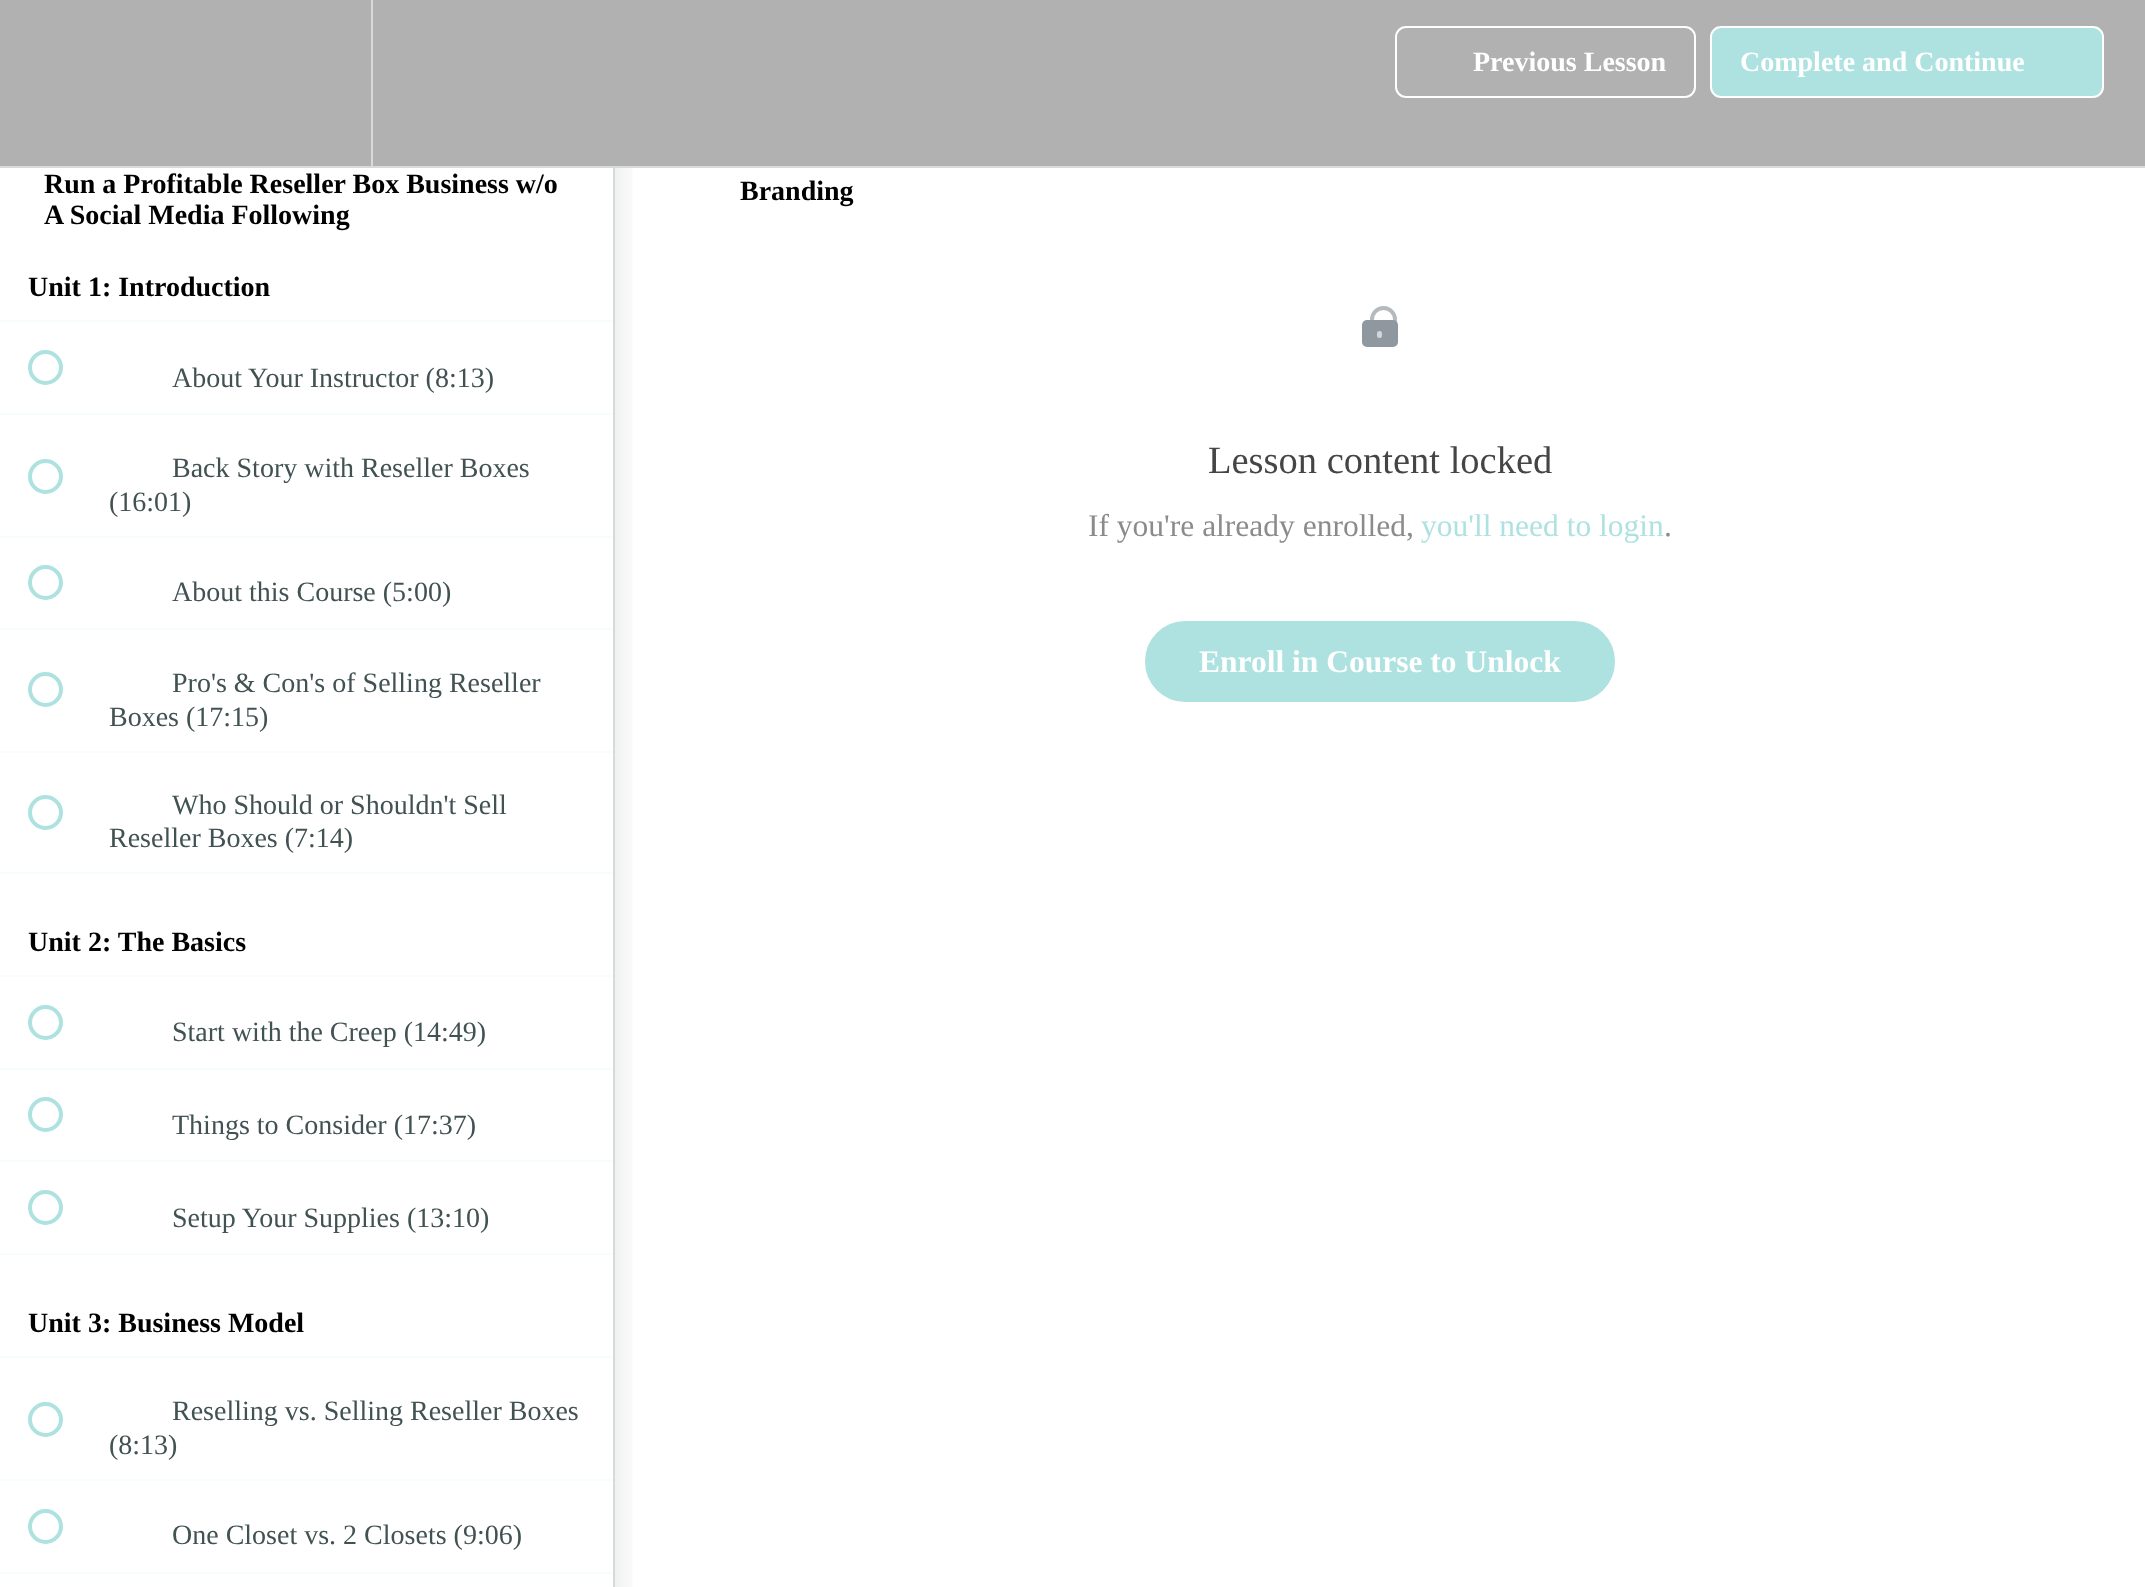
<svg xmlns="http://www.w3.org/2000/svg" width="2145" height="1587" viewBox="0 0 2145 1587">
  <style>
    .t1 { font: bold 28px Liberation Serif; fill: #fff; }
    .t2 { font: bold 28px Liberation Serif; fill: #000; }
    .t3 { font: 28px Liberation Serif; fill: #425252; }
    .t4 { font: 38.5px Liberation Serif; fill: #454545; }
    .t5 { font: 31.5px Liberation Serif; fill: #8b8b8b; }
    .t6 { font: 31.5px Liberation Serif; fill: #aee2e0; }
    .t7 { font: bold 31.5px Liberation Serif; fill: #fff; }
  </style>
  <defs>
    <clipPath id="clip1"><rect x="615" y="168" width="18" height="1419"/></clipPath>
  </defs>
  <rect width="100%" height="100%" fill="#fff"/>
  <g clip-path="url(#clip1)">
    <rect x="0" y="135" width="614" height="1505" fill="#20272d26" filter="blur(17.5px)"/>
  </g>
  <rect x="0" y="0" width="2145" height="166" fill="#b1b1b1"/>
  <rect x="0" y="166" width="2145" height="2" fill="#d7dadb"/>
  <rect x="371" y="0" width="2" height="166" fill="#d7dadb"/>
  <rect x="1396" y="27" width="299" height="70" rx="10" fill="none" stroke="#fff" stroke-width="2"/>
  <text x="1473" y="71" class="t1">Previous Lesson</text>
  <rect x="1711" y="27" width="392" height="70" rx="10" fill="#aee2e0" stroke="#fff" stroke-width="2"/>
  <text x="1740" y="71" class="t1">Complete and Continue</text>
  <rect x="613" y="168" width="2" height="1419" fill="#d7dadb"/>
  <text x="44" y="193" class="t2">Run a Profitable Reseller Box Business w/o</text>
  <text x="44" y="224" class="t2">A Social Media Following</text>
  <rect x="0" y="320" width="613" height="2" fill="#f7fcfc"/>
  <text x="28" y="296" class="t2">Unit 1: Introduction</text>
  <rect x="0" y="413" width="613" height="2" fill="#f7fcfc"/>
  <circle cx="45.5" cy="367.5" r="15.5" fill="none" stroke="#aee2e0" stroke-width="4"/>
  <text x="172" y="387" class="t3">About Your Instructor (8:13)</text>
  <rect x="0" y="536" width="613" height="2" fill="#f7fcfc"/>
  <circle cx="45.5" cy="476.5" r="15.5" fill="none" stroke="#aee2e0" stroke-width="4"/>
  <text x="172" y="477" class="t3">Back Story with Reseller Boxes</text>
  <text x="109" y="511" class="t3">(16:01)</text>
  <rect x="0" y="628" width="613" height="2" fill="#f7fcfc"/>
  <circle cx="45.5" cy="582.5" r="15.5" fill="none" stroke="#aee2e0" stroke-width="4"/>
  <text x="172" y="601" class="t3">About this Course (5:00)</text>
  <rect x="0" y="751" width="613" height="2" fill="#f7fcfc"/>
  <circle cx="45.5" cy="689.5" r="15.5" fill="none" stroke="#aee2e0" stroke-width="4"/>
  <text x="172" y="692" class="t3">Pro's &amp; Con's of Selling Reseller</text>
  <text x="109" y="726" class="t3">Boxes (17:15)</text>
  <rect x="0" y="872" width="613" height="2" fill="#f7fcfc"/>
  <circle cx="45.5" cy="812.5" r="15.5" fill="none" stroke="#aee2e0" stroke-width="4"/>
  <text x="172" y="814" class="t3">Who Should or Shouldn't Sell</text>
  <text x="109" y="847" class="t3">Reseller Boxes (7:14)</text>
  <rect x="0" y="975" width="613" height="2" fill="#f7fcfc"/>
  <text x="28" y="951" class="t2">Unit 2: The Basics</text>
  <rect x="0" y="1068" width="613" height="2" fill="#f7fcfc"/>
  <circle cx="45.5" cy="1022.5" r="15.5" fill="none" stroke="#aee2e0" stroke-width="4"/>
  <text x="172" y="1041" class="t3">Start with the Creep (14:49)</text>
  <rect x="0" y="1160" width="613" height="2" fill="#f7fcfc"/>
  <circle cx="45.5" cy="1114.5" r="15.5" fill="none" stroke="#aee2e0" stroke-width="4"/>
  <text x="172" y="1134" class="t3">Things to Consider (17:37)</text>
  <rect x="0" y="1253" width="613" height="2" fill="#f7fcfc"/>
  <circle cx="45.5" cy="1207.5" r="15.5" fill="none" stroke="#aee2e0" stroke-width="4"/>
  <text x="172" y="1227" class="t3">Setup Your Supplies (13:10)</text>
  <rect x="0" y="1356" width="613" height="2" fill="#f7fcfc"/>
  <text x="28" y="1332" class="t2">Unit 3: Business Model</text>
  <rect x="0" y="1479" width="613" height="2" fill="#f7fcfc"/>
  <circle cx="45.5" cy="1419.5" r="15.5" fill="none" stroke="#aee2e0" stroke-width="4"/>
  <text x="172" y="1420" class="t3">Reselling vs. Selling Reseller Boxes</text>
  <text x="109" y="1454" class="t3">(8:13)</text>
  <rect x="0" y="1572" width="613" height="2" fill="#f7fcfc"/>
  <circle cx="45.5" cy="1526.5" r="15.5" fill="none" stroke="#aee2e0" stroke-width="4"/>
  <text x="172" y="1544" class="t3">One Closet vs. 2 Closets (9:06)</text>
  <text x="740" y="200" class="t2">Branding</text>
  <rect x="1372" y="308" width="23" height="35" rx="11.5" fill="none" stroke="#b5babf" stroke-width="4"/>
  <rect x="1362" y="320" width="36" height="27" rx="5" fill="#8f989f"/>
  <rect x="1377" y="331" width="5" height="7" rx="2.5" fill="#d3d7dc"/>
  <text x="1208" y="473" class="t4">Lesson content locked</text>
  <text x="1088" y="536" class="t5">If you're already enrolled,</text>
  <text x="1421" y="536" class="t6">you'll need to login</text>
  <text x="1664" y="536" class="t5">.</text>
  <rect x="1146" y="622" width="468" height="79" rx="39.5" fill="#aee2e0" stroke="#aee2e0" stroke-width="2"/>
  <text x="1199" y="672" class="t7">Enroll in Course to Unlock</text>
</svg>
